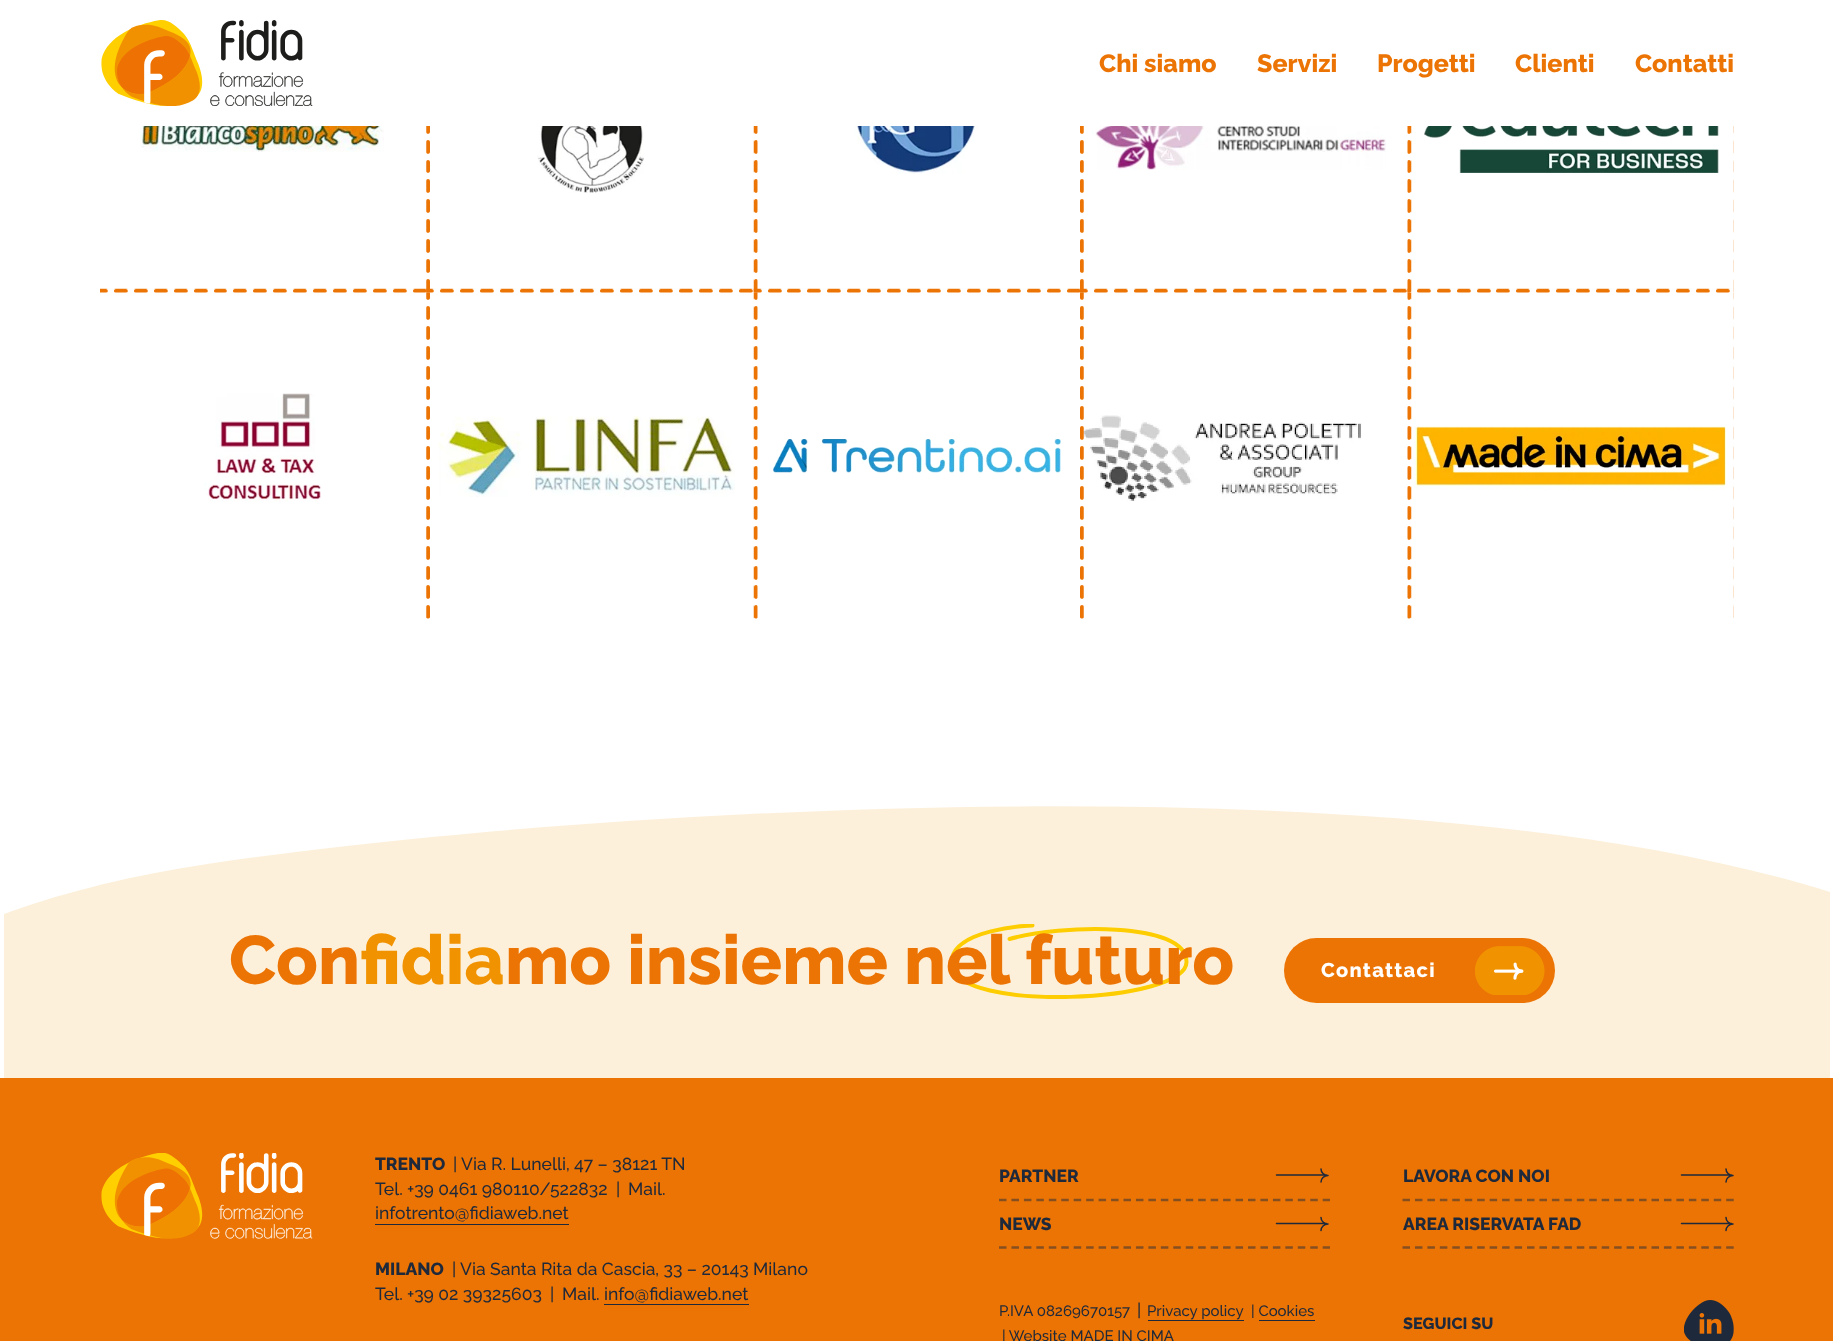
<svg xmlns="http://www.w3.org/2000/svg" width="1833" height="1341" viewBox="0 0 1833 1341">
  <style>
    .t1 { font: 800 25px Raleway; fill: #ec7404; }
    .t2 { font: 800 68.75px Raleway; fill: #f19300; }
    .t3 { font: 800 68.75px Raleway; fill: #ec7404; }
    .t4 { font: 800 20px Raleway; letter-spacing: 1.25px; fill: #fff; }
    .t5 { font: 800 17.5px Raleway; fill: #1e293b; }
    .t6 { font: 500 17.5px Raleway; fill: #1e293b; }
    .t7 { font: 500 15px Raleway; fill: #1e293b; }
    .t8 { font: 800 16.25px Raleway; fill: #1e293b; }
  </style>
  <defs>
    <clipPath id="clip1"><rect x="950" y="924" width="239" height="75"/></clipPath>
  </defs>
  <rect width="100%" height="100%" fill="#fff"/>
  <image x="101" y="20" width="212" height="86" href="images/1.png"/>
  <text x="1099" y="72" class="t1">Chi siamo</text>
  <text x="1257" y="72" class="t1">Servizi</text>
  <text x="1377" y="72" class="t1">Progetti</text>
  <text x="1515" y="72" class="t1">Clienti</text>
  <text x="1635" y="72" class="t1">Contatti</text>
  <image x="140" y="126" width="244" height="26" href="images/2.png"/>
  <image x="426" y="126" width="4" height="167" href="images/3.png"/>
  <image x="537" y="126" width="107" height="67" href="images/4.png"/>
  <image x="753" y="126" width="5" height="167" href="images/5.png"/>
  <image x="854" y="126" width="125" height="48" href="images/6.png"/>
  <image x="1080" y="126" width="4" height="167" href="images/7.png"/>
  <image x="1092" y="126" width="294" height="44" href="images/8.png"/>
  <image x="1407" y="126" width="5" height="167" href="images/9.png"/>
  <image x="1424" y="126" width="295" height="47" href="images/10.png"/>
  <image x="1733" y="126" width="1" height="166" href="images/11.png"/>
  <image x="426" y="292" width="4" height="327" href="images/14.png"/>
  <image x="100" y="288" width="327" height="5" href="images/12.png"/>
  <image x="204" y="393" width="117" height="109" href="images/13.png"/>
  <image x="426" y="288" width="327" height="5" href="images/15.png"/>
  <image x="438" y="416" width="297" height="81" href="images/16.png"/>
  <image x="753" y="292" width="5" height="327" href="images/17.png"/>
  <image x="753" y="288" width="327" height="5" href="images/18.png"/>
  <image x="773" y="439" width="288" height="34" href="images/19.png"/>
  <image x="1083" y="415" width="279" height="86" href="images/22.png"/>
  <image x="1080" y="292" width="4" height="327" href="images/20.png"/>
  <image x="1080" y="288" width="327" height="5" href="images/21.png"/>
  <image x="1407" y="292" width="5" height="327" href="images/23.png"/>
  <image x="1407" y="288" width="323" height="5" href="images/24.png"/>
  <image x="1413" y="426" width="313" height="64" href="images/25.png"/>
  <image x="1733" y="292" width="1" height="326" href="images/26.png"/>
  <path d="M1830 892C1366 746 473 821 195 866C119 878 56 895 4 914V1124H1830Z" fill="#fdf0db"/>
  <text x="360" y="984" class="t2">fidia</text>
  <g clip-path="url(#clip1)">
    <path d="M1009.5 939C1058.5 925 1186.5 920.5 1186.5 962C1186.5 1003 955.5 1013 951.5 965C948.5 928 1032.5 925.5 1032.5 925.5" fill="none" stroke="#fdcd01" stroke-width="4" stroke-linecap="round"/>
  </g>
  <text x="229" y="984" class="t3">Con</text>
  <text x="505" y="984" class="t3">mo insieme nel futuro</text>
  <rect x="1284" y="938" width="271" height="65" rx="32.5" fill="#ec7404"/>
  <text x="1321" y="977" class="t4">Contattaci</text>
  <image x="1475" y="946" width="70" height="49" href="images/27.png"/>
  <rect x="0" y="1078" width="1833" height="263" fill="#ec7404"/>
  <image x="101" y="1153" width="212" height="86" href="images/28.png"/>
  <text x="375" y="1170" class="t5">TRENTO</text>
  <text x="453" y="1170" class="t6">|</text>
  <text x="461" y="1170" class="t6">Via R. Lunelli, 47 – 38121 TN</text>
  <text x="616" y="1195" class="t6">|</text>
  <text x="628" y="1195" class="t6">Mail.</text>
  <text x="375" y="1219" class="t6">infotrento@fidiaweb.net</text>
  <rect x="375" y="1224" width="194" height="1" fill="#1e293b"/>
  <text x="375" y="1195" class="t6">Tel. +39 0461 980110/522832</text>
  <text x="375" y="1275" class="t5">MILANO</text>
  <text x="452" y="1275" class="t6">|</text>
  <text x="460" y="1275" class="t6">Via Santa Rita da Cascia, 33 – 20143 Milano</text>
  <text x="375" y="1300" class="t6">Tel. +39 02 39325603</text>
  <text x="550" y="1300" class="t6">|</text>
  <text x="562" y="1300" class="t6">Mail. info@fidiaweb.net</text>
  <rect x="604" y="1304" width="145" height="1" fill="#1e293b"/>
  <path d="M999 1200H1330" fill="none" stroke="#854f20" stroke-width="2.5" stroke-dasharray="7.5 4.95"/>
  <text x="999" y="1182" class="t5">PARTNER</text>
  <path d="M1321 1169C1321 1172.5 1324 1175.5 1328 1175.5M1328 1175.5C1324 1175.5 1321 1178.5 1321 1182M1326.5 1175H1276.5" fill="none" stroke="#1e293b" stroke-width="1.5" stroke-linecap="round"/>
  <path d="M1402.5 1200H1734" fill="none" stroke="#854f20" stroke-width="2.5" stroke-dasharray="7.5 4.95"/>
  <text x="1403" y="1182" class="t5">LAVORA CON NOI</text>
  <path d="M1726 1169C1726 1172.5 1729 1175.5 1733 1175.5M1733 1175.5C1729 1175.5 1726 1178.5 1726 1182M1731.5 1175H1681.5" fill="none" stroke="#1e293b" stroke-width="1.5" stroke-linecap="round"/>
  <path d="M999 1247.5H1330" fill="none" stroke="#854f20" stroke-width="2.5" stroke-dasharray="7.5 4.95"/>
  <text x="999" y="1230" class="t5">NEWS</text>
  <path d="M1321 1217.5C1321 1221 1324 1224 1328 1224M1328 1224C1324 1224 1321 1227 1321 1230.5M1326.5 1223.5H1276.5" fill="none" stroke="#1e293b" stroke-width="1.5" stroke-linecap="round"/>
  <path d="M1402.5 1247.5H1734" fill="none" stroke="#854f20" stroke-width="2.5" stroke-dasharray="7.5 4.95"/>
  <text x="1403" y="1230" class="t5">AREA RISERVATA FAD</text>
  <path d="M1726 1217.5C1726 1221 1729 1224 1733 1224M1733 1224C1729 1224 1726 1227 1726 1230.5M1731.5 1223.5H1681.5" fill="none" stroke="#1e293b" stroke-width="1.5" stroke-linecap="round"/>
  <text x="999" y="1316" class="t7">P.IVA 08269670157</text>
  <text x="1137" y="1316" class="t6">|</text>
  <text x="1147" y="1316" class="t7">Privacy policy</text>
  <rect x="1148" y="1320" width="96" height="1" fill="#1e293b"/>
  <text x="1251" y="1316" class="t7">| Cookies</text>
  <rect x="1259" y="1320" width="56" height="1" fill="#1e293b"/>
  <text x="1002" y="1341" class="t7">| Website MADE IN CIMA</text>
  <text x="1403" y="1329" class="t8">SEGUICI SU</text>
  <image x="1684" y="1300" width="50" height="41" href="images/29.png"/>
</svg>
